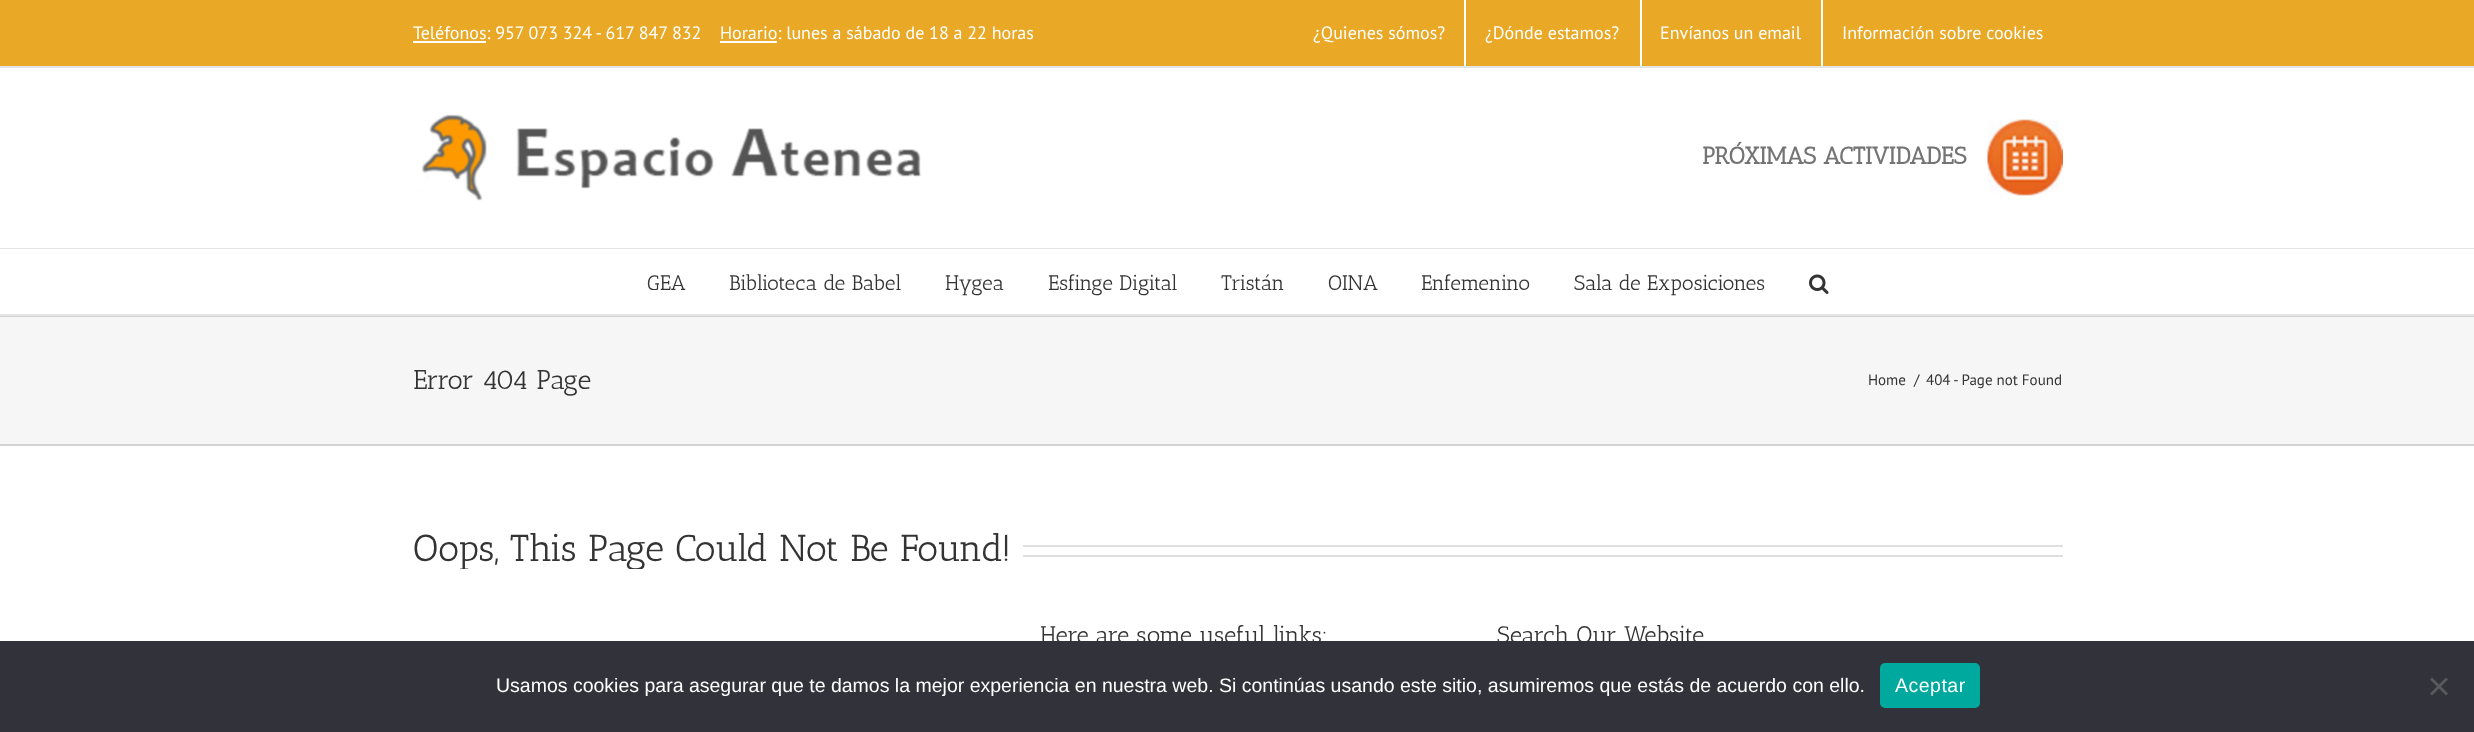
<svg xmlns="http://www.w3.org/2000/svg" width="2474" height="732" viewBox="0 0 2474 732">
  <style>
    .t1 { font: 18px PT Sans; fill: #fff; }
    .t2 { font: bold 24px Antic Slab; fill: #747474; }
    .t3 { font: 21px Antic Slab; fill: #333; }
    .t4 { font: 27px Antic Slab; fill: #333; }
    .t5 { font: 15px PT Sans; fill: #333; }
    .t6 { font: 37.5px Antic Slab; fill: #333; }
    .t7 { font: 24px Antic Slab; fill: #333; }
    .t8 { font: 19.5px Liberation Sans; fill: #fff; }
    .t9 { font: 19.5px Liberation Sans; letter-spacing: 0.5px; fill: #fff; }
  </style>
  <defs>
    <clipPath id="clip1"><rect x="413" y="528" width="1650" height="41"/></clipPath>
  </defs>
  <rect width="100%" height="100%" fill="#fff"/>
  <rect x="0" y="0" width="2474" height="66" fill="#e9a825"/>
  <rect x="0" y="66" width="2474" height="2" fill="#e5e5e5"/>
  <text x="413" y="39" class="t1">Teléfonos: 957 073 324 - 617 847 832</text>
  <rect x="413" y="41" width="73" height="2" fill="#fff"/>
  <text x="720" y="39" class="t1">Horario: lunes a sábado de 18 a 22 horas</text>
  <rect x="720" y="41" width="57" height="2" fill="#fff"/>
  <text x="1313" y="39" class="t1">¿Quienes sómos?</text>
  <rect x="1464" y="0" width="2" height="66" fill="#fff"/>
  <text x="1485" y="39" class="t1">¿Dónde estamos?</text>
  <rect x="1640" y="0" width="2" height="66" fill="#fff"/>
  <text x="1660" y="39" class="t1">Envíanos un email</text>
  <rect x="1821" y="0" width="2" height="66" fill="#fff"/>
  <text x="1842" y="39" class="t1">Información sobre cookies</text>
  <rect x="0" y="248" width="2474" height="1" fill="#e5e5e5"/>
  <image x="421" y="114" width="501" height="87" href="images/1.png"/>
  <text x="1702" y="164" class="t2">PRÓXIMAS ACTIVIDADES</text>
  <image x="1987" y="119" width="76" height="77" href="images/2.png"/>
  <rect x="0" y="314" width="2474" height="2" fill="#e5e5e5"/>
  <text x="647" y="290" class="t3">GEA</text>
  <text x="729" y="290" class="t3">Biblioteca de Babel</text>
  <text x="945" y="290" class="t3">Hygea</text>
  <text x="1048" y="290" class="t3">Esfinge Digital</text>
  <text x="1221" y="290" class="t3">Tristán</text>
  <text x="1328" y="290" class="t3">OINA</text>
  <text x="1421" y="290" class="t3">Enfemenino</text>
  <text x="1574" y="290" class="t3">Sala de Exposiciones</text>
  <image x="1809" y="274" width="20" height="20" href="images/3.png"/>
  <rect x="0" y="317" width="2474" height="127" fill="#f6f6f6"/>
  <rect x="0" y="316" width="2474" height="1" fill="#d2d3d4"/>
  <rect x="0" y="444" width="2474" height="2" fill="#d2d3d4"/>
  <text x="413" y="389" class="t4">Error 404 Page</text>
  <text x="1868" y="385" class="t5">Home</text>
  <text x="1914" y="385" class="t5">/</text>
  <text x="1926" y="385" class="t5">404 - Page not Found</text>
  <g clip-path="url(#clip1)">
    <text x="413" y="561" class="t6">Oops, This Page Could Not Be Found!</text>
  </g>
  <rect x="1023" y="545" width="1040" height="2" fill="#e0dede"/>
  <rect x="1023" y="555" width="1040" height="2" fill="#e0dede"/>
  <text x="1040" y="643" class="t7">Here are some useful links:</text>
  <text x="1497" y="643" class="t7">Search Our Website</text>
  <rect x="0" y="641" width="2474" height="91" fill="#32323a"/>
  <text x="496" y="692" class="t8">Usamos cookies para asegurar que te damos la mejor experiencia en nuestra web. Si continúas usando este sitio, asumiremos que estás de acuerdo con ello.</text>
  <rect x="1880" y="663" width="100" height="45" rx="5" fill="#00a99d"/>
  <text x="1895" y="692" class="t9">Aceptar</text>
  <path d="M2446 677.5L2448 679.5L2432 695.5L2430 693.5Z" fill="#59595d"/>
  <path d="M2430 679.5L2432 677.5L2448 693.5L2446 695.5Z" fill="#59595d"/>
</svg>
